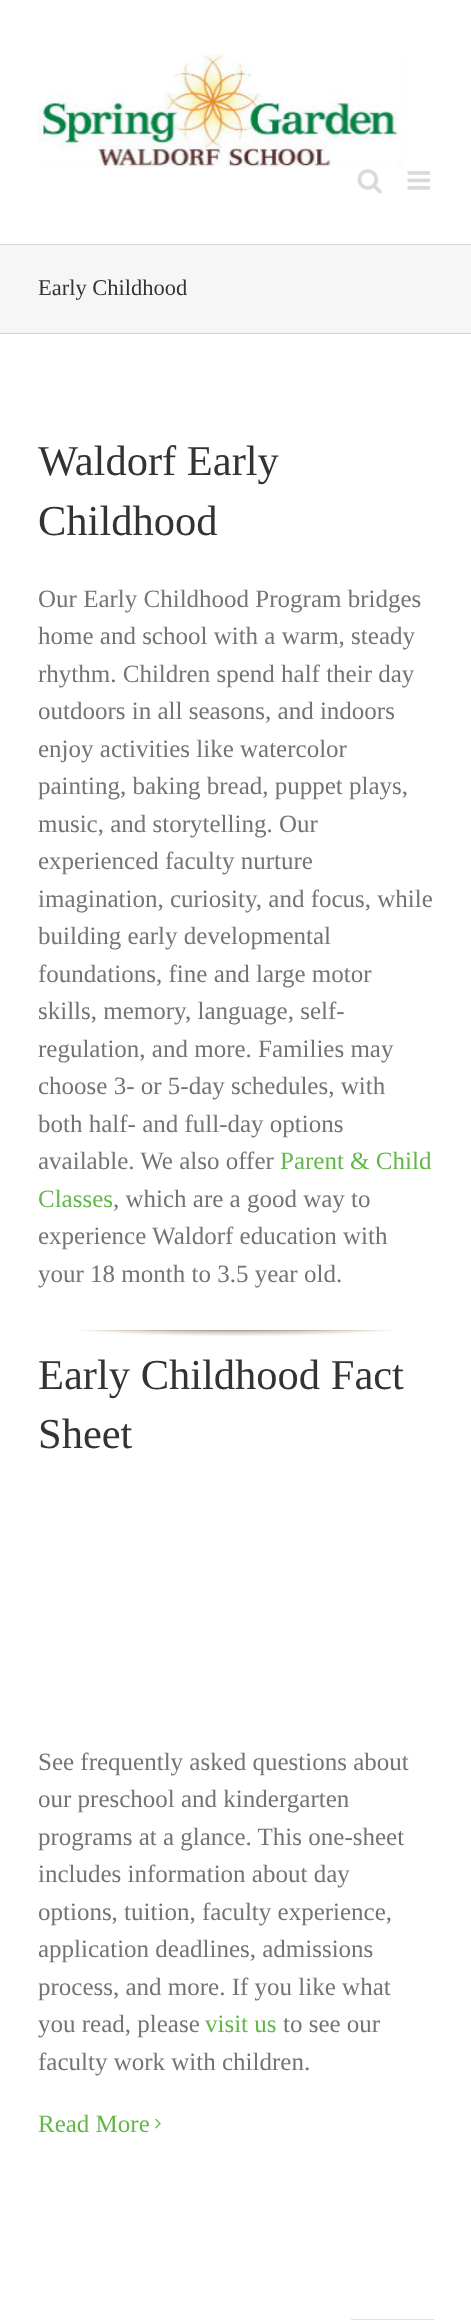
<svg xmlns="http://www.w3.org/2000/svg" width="471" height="2322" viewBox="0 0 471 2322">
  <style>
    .t1 { font: 22.5px Liberation Serif; fill: #333; }
    .t2 { font: 42.5px Liberation Serif; fill: #333; }
    .t3 { font: 25px Liberation Serif; fill: #747474; }
    .t4 { font: 25px Liberation Serif; fill: #61b749; }
  </style>
  <defs>
    <radialGradient id="g1" gradientUnits="userSpaceOnUse" cx="0" cy="0" r="1" gradientTransform="matrix(280 0 0 2.7 236 1329)"><stop offset="0" stop-color="#ed8b00"/><stop offset="0.8" stop-color="#fff"/></radialGradient>
    <radialGradient id="g2" gradientUnits="userSpaceOnUse" cx="0" cy="0" r="1" gradientTransform="matrix(280 0 0 16 236 1326)"><stop offset="0" stop-color="#000" stop-opacity="0.5"/><stop offset="0.65" stop-color="#000" stop-opacity="0"/></radialGradient>
  </defs>
  <rect width="100%" height="100%" fill="#fff"/>
  <image x="37" y="53" width="366" height="115" href="images/1.png"/>
  <image x="357" y="169" width="25" height="25" href="images/2.png"/>
  <image x="407" y="171" width="23" height="19" href="images/3.png"/>
  <rect x="0" y="245" width="471" height="88" fill="#f6f6f6"/>
  <rect x="0" y="244" width="471" height="1" fill="#d2d3d4"/>
  <rect x="0" y="333" width="471" height="1" fill="#d2d3d4"/>
  <text x="38" y="295" class="t1">Early Childhood</text>
  <text x="38" y="475" class="t2">Waldorf Early</text>
  <text x="38" y="535" class="t2">Childhood</text>
  <text x="38" y="607" class="t3">Our Early Childhood Program bridges</text>
  <text x="38" y="644" class="t3">home and school with a warm, steady</text>
  <text x="38" y="682" class="t3">rhythm. Children spend half their day</text>
  <text x="38" y="719" class="t3">outdoors in all seasons, and indoors</text>
  <text x="38" y="757" class="t3">enjoy activities like watercolor</text>
  <text x="38" y="794" class="t3">painting, baking bread, puppet plays,</text>
  <text x="38" y="832" class="t3">music, and storytelling. Our</text>
  <text x="38" y="869" class="t3">experienced faculty nurture</text>
  <text x="38" y="907" class="t3">imagination, curiosity, and focus, while</text>
  <text x="38" y="944" class="t3">building early developmental</text>
  <text x="38" y="982" class="t3">foundations, fine and large motor</text>
  <text x="38" y="1019" class="t3">skills, memory, language, self-</text>
  <text x="38" y="1057" class="t3">regulation, and more. Families may</text>
  <text x="38" y="1094" class="t3">choose 3- or 5-day schedules, with</text>
  <text x="38" y="1132" class="t3">both half- and full-day options</text>
  <text x="38" y="1169" class="t3">available. We also offer</text>
  <text x="280" y="1169" class="t4">Parent &amp; Child</text>
  <text x="38" y="1207" class="t4">Classes</text>
  <text x="113" y="1207" class="t3">, which are a good way to</text>
  <text x="38" y="1244" class="t3">experience Waldorf education with</text>
  <text x="38" y="1282" class="t3">your 18 month to 3.5 year old.</text>
  <rect x="78" y="1330" width="316" height="1" fill="url(#g1)"/>
  <rect x="81" y="1330" width="310" height="6" fill="url(#g2)"/>
  <text x="38" y="1389" class="t2">Early Childhood Fact</text>
  <text x="38" y="1448" class="t2">Sheet</text>
  <text x="38" y="1770" class="t3">See frequently asked questions about</text>
  <text x="38" y="1807" class="t3">our preschool and kindergarten</text>
  <text x="38" y="1845" class="t3">programs at a glance. This one-sheet</text>
  <text x="38" y="1882" class="t3">includes information about day</text>
  <text x="38" y="1920" class="t3">options, tuition, faculty experience,</text>
  <text x="38" y="1957" class="t3">application deadlines, admissions</text>
  <text x="38" y="1995" class="t3">process, and more. If you like what</text>
  <text x="38" y="2032" class="t3">you read, please</text>
  <text x="205" y="2032" class="t4">visit us</text>
  <text x="283" y="2032" class="t3">to see our</text>
  <text x="38" y="2070" class="t3">faculty work with children.</text>
  <text x="38" y="2132" class="t4">Read More</text>
  <image x="155" y="2118" width="6" height="11" href="images/4.png"/>
  <rect x="351" y="2319" width="83" height="1" fill="#e0dede"/>
</svg>
